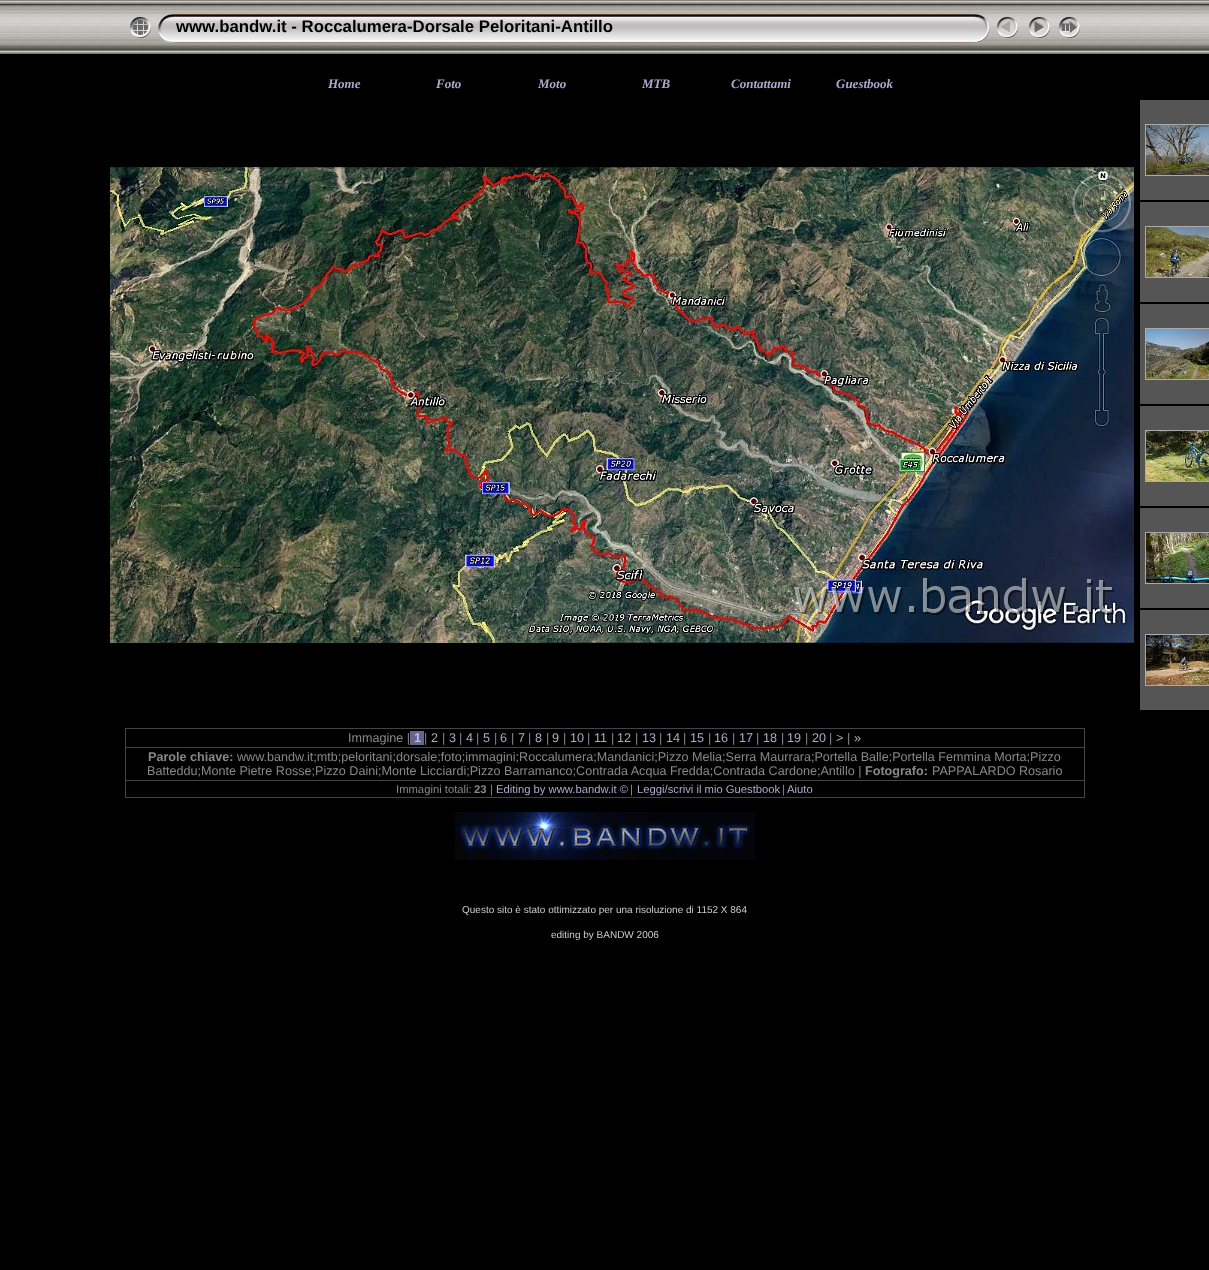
<svg xmlns="http://www.w3.org/2000/svg" width="1209" height="1270" viewBox="0 0 1209 1270">
  <style>
    .t1 { font: bold 16.8px Liberation Sans; fill: #000; }
    .t2 { font: italic bold 13px Liberation Serif; fill: #aac; }
    .t3 { font: 12.6px Liberation Sans; fill: #888; }
    .t4 { font: bold 12.6px Liberation Sans; fill: #bbf; }
    .t5 { font: 12.6px Liberation Sans; fill: #aac; }
    .t6 { font: bold 12.6px Liberation Sans; fill: #888; }
    .t7 { font: 11.25px Liberation Sans; fill: #888; }
    .t8 { font: bold 11.25px Liberation Sans; fill: #888; }
    .t9 { font: 11.25px Liberation Sans; fill: #aac; }
    .t10 { font: 10px Liberation Sans; fill: #ccc; }
  </style>
  <rect width="100%" height="100%" fill="#000"/>
  <image x="0" y="0" width="1209" height="54" href="images/1.png"/>
  <image x="129" y="17" width="22" height="21" href="images/2.png"/>
  <image x="158" y="14" width="18" height="29" href="images/3.png"/>
  <image x="176" y="14" width="796" height="29" href="images/4.png"/>
  <text x="176" y="32" class="t1">www.bandw.it - Roccalumera-Dorsale Peloritani-Antillo</text>
  <image x="972" y="14" width="18" height="29" href="images/5.png"/>
  <image x="996" y="17" width="22" height="21" href="images/6.png"/>
  <image x="1028" y="17" width="22" height="21" href="images/7.png"/>
  <image x="1058" y="17" width="22" height="21" href="images/8.png"/>
  <text x="328" y="88" class="t2">Home</text>
  <text x="436" y="88" class="t2">Foto</text>
  <text x="538" y="88" class="t2">Moto</text>
  <text x="642" y="88" class="t2">MTB</text>
  <text x="731" y="88" class="t2">Contattami</text>
  <text x="836" y="88" class="t2">Guestbook</text>
  <image x="110" y="167" width="1024" height="476" href="images/9.png"/>
  <rect x="1140" y="100" width="69" height="100" fill="#555"/>
  <rect x="1145.5" y="124.5" width="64" height="51" fill="none" stroke="#aaa"/>
  <image x="1146" y="125" width="63" height="50" href="images/10.png"/>
  <rect x="1140" y="202" width="69" height="100" fill="#555"/>
  <rect x="1145.5" y="226.5" width="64" height="51" fill="none" stroke="#aaa"/>
  <image x="1146" y="227" width="63" height="50" href="images/11.png"/>
  <rect x="1140" y="304" width="69" height="100" fill="#555"/>
  <rect x="1145.5" y="328.5" width="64" height="51" fill="none" stroke="#aaa"/>
  <image x="1146" y="329" width="63" height="50" href="images/12.png"/>
  <rect x="1140" y="406" width="69" height="100" fill="#555"/>
  <rect x="1145.5" y="430.5" width="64" height="51" fill="none" stroke="#aaa"/>
  <image x="1146" y="431" width="63" height="50" href="images/13.png"/>
  <rect x="1140" y="508" width="69" height="100" fill="#555"/>
  <rect x="1145.5" y="532.5" width="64" height="51" fill="none" stroke="#aaa"/>
  <image x="1146" y="533" width="63" height="50" href="images/14.png"/>
  <rect x="1140" y="610" width="69" height="100" fill="#555"/>
  <rect x="1145.5" y="634.5" width="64" height="51" fill="none" stroke="#aaa"/>
  <image x="1146" y="635" width="63" height="50" href="images/15.png"/>
  <rect x="125" y="728" width="960" height="1" fill="#444"/>
  <rect x="1084" y="728" width="1" height="70" fill="#444"/>
  <rect x="125" y="797" width="960" height="1" fill="#444"/>
  <rect x="125" y="728" width="1" height="70" fill="#444"/>
  <text x="348" y="742" class="t3">Immagine |</text>
  <rect x="410" y="731" width="14" height="14" fill="#668"/>
  <text x="414" y="742" class="t4">1</text>
  <text x="424" y="742" class="t3">|</text>
  <text x="431" y="742" class="t5">2</text>
  <text x="442" y="742" class="t3">|</text>
  <text x="449" y="742" class="t5">3</text>
  <text x="459" y="742" class="t3">|</text>
  <text x="466" y="742" class="t5">4</text>
  <text x="476" y="742" class="t3">|</text>
  <text x="483" y="742" class="t5">5</text>
  <text x="494" y="742" class="t3">|</text>
  <text x="500" y="742" class="t5">6</text>
  <text x="511" y="742" class="t3">|</text>
  <text x="518" y="742" class="t5">7</text>
  <text x="528" y="742" class="t3">|</text>
  <text x="535" y="742" class="t5">8</text>
  <text x="546" y="742" class="t3">|</text>
  <text x="552" y="742" class="t5">9</text>
  <text x="563" y="742" class="t3">|</text>
  <text x="570" y="742" class="t5">10</text>
  <text x="587" y="742" class="t3">|</text>
  <text x="594" y="742" class="t5">11</text>
  <text x="611" y="742" class="t3">|</text>
  <text x="617" y="742" class="t5">12</text>
  <text x="635" y="742" class="t3">|</text>
  <text x="642" y="742" class="t5">13</text>
  <text x="659" y="742" class="t3">|</text>
  <text x="666" y="742" class="t5">14</text>
  <text x="683" y="742" class="t3">|</text>
  <text x="690" y="742" class="t5">15</text>
  <text x="708" y="742" class="t3">|</text>
  <text x="714" y="742" class="t5">16</text>
  <text x="732" y="742" class="t3">|</text>
  <text x="739" y="742" class="t5">17</text>
  <text x="756" y="742" class="t3">|</text>
  <text x="763" y="742" class="t5">18</text>
  <text x="781" y="742" class="t3">|</text>
  <text x="787" y="742" class="t5">19</text>
  <text x="805" y="742" class="t3">|</text>
  <text x="812" y="742" class="t5">20</text>
  <text x="829" y="742" class="t3">|</text>
  <text x="836" y="742" class="t5">&gt;</text>
  <text x="847" y="742" class="t3">|</text>
  <text x="854" y="742" class="t5">»</text>
  <rect x="125" y="747" width="960" height="1" fill="#444"/>
  <text x="148" y="761" class="t6">Parole chiave:</text>
  <text x="237" y="761" class="t3">www.bandw.it;mtb;peloritani;dorsale;foto;immagini;Roccalumera;Mandanici;Pizzo Melia;Serra Maurrara;Portella Balle;Portella Femmina Morta;Pizzo</text>
  <text x="147" y="775" class="t3">Batteddu;Monte Pietre Rosse;Pizzo Daini;Monte Licciardi;Pizzo Barramanco;Contrada Acqua Fredda;Contrada Cardone;Antillo |</text>
  <text x="865" y="775" class="t6">Fotografo:</text>
  <text x="932" y="775" class="t3">PAPPALARDO Rosario</text>
  <rect x="125" y="780" width="960" height="1" fill="#444"/>
  <text x="396" y="793" class="t7">Immagini totali:</text>
  <text x="474" y="793" class="t8">23</text>
  <text x="490" y="793" class="t7">|</text>
  <text x="496" y="793" class="t9">Editing by www.bandw.it ©</text>
  <text x="630" y="793" class="t7">|</text>
  <text x="637" y="793" class="t9">Leggi/scrivi il mio Guestbook</text>
  <text x="782" y="793" class="t7">|</text>
  <text x="787" y="793" class="t9">Aiuto</text>
  <image x="455" y="812" width="300" height="48" href="images/16.png"/>
  <text x="462" y="913" class="t10">Questo sito è stato ottimizzato per una risoluzione di 1152 X 864</text>
  <text x="551" y="938" class="t10">editing by BANDW 2006</text>
</svg>
